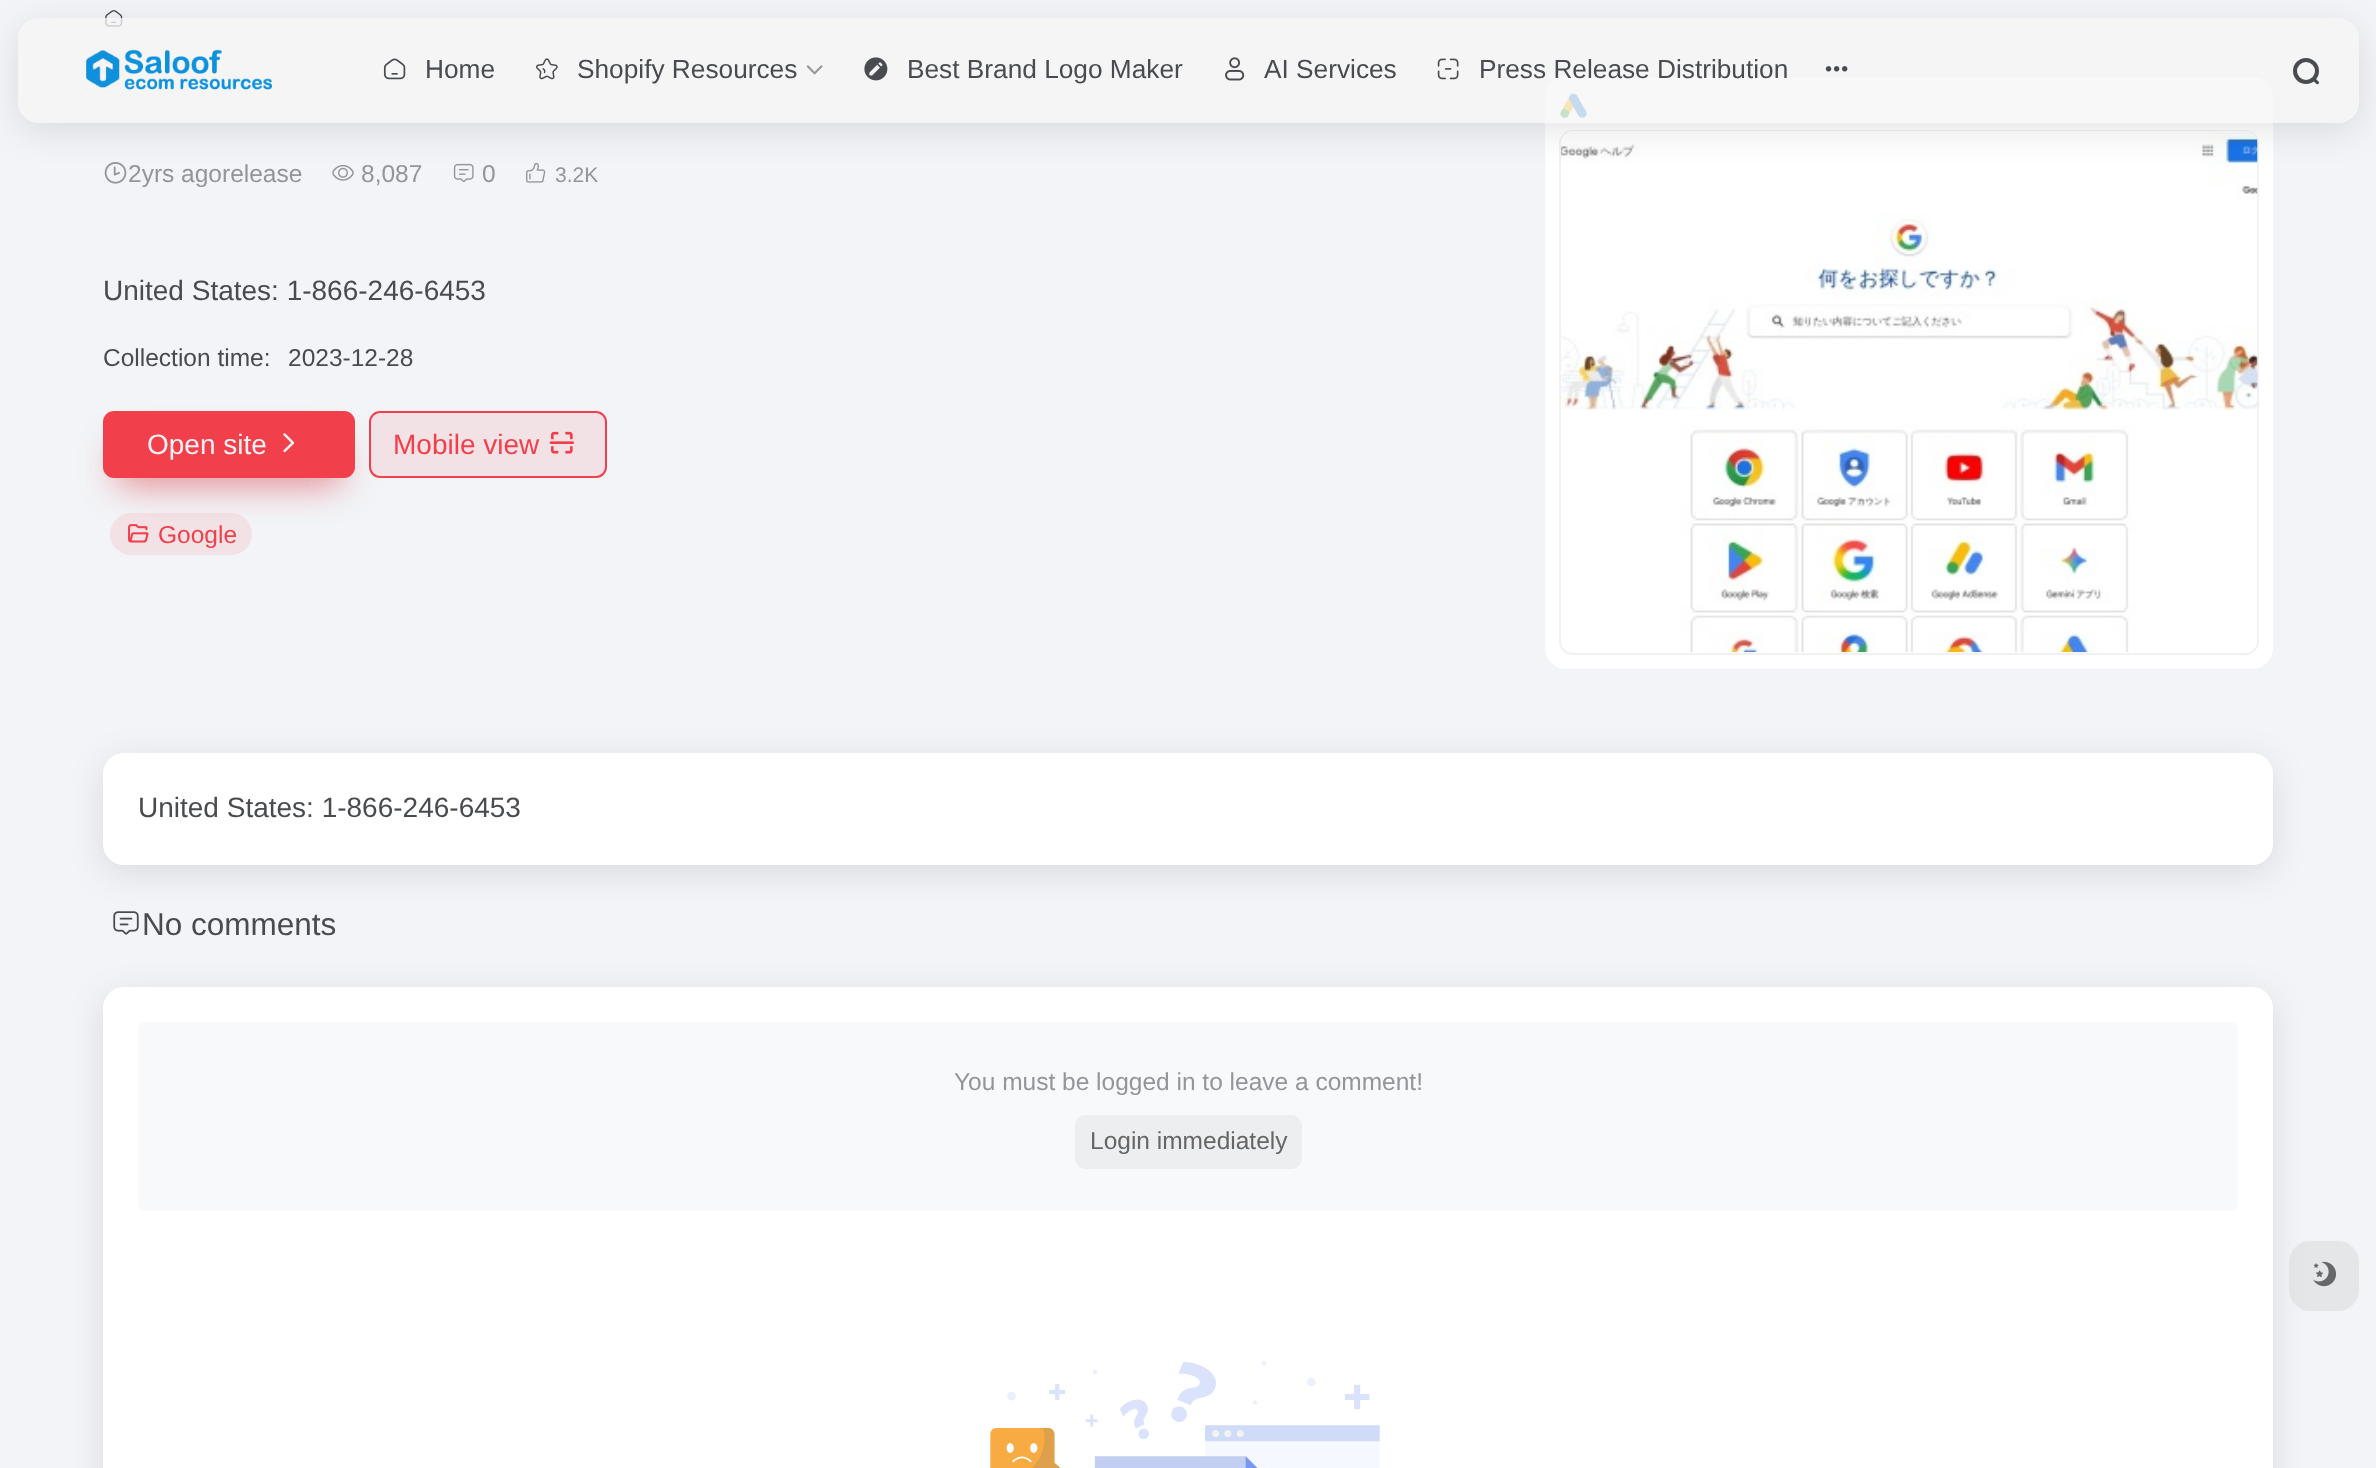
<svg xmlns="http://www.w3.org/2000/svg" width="2376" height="1468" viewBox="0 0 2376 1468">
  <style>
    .t1 { font: 26.25px Liberation Sans; fill: #484b4f; }
    .t2 { font: 24.5px Liberation Sans; fill: #93959a; }
    .t3 { font: 21px Liberation Sans; fill: #93959a; }
    .t4 { font: 28px Liberation Sans; fill: #484b4f; }
    .t5 { font: 24.5px Liberation Sans; fill: #484b4f; }
    .t6 { font: 28px Liberation Sans; fill: #f1f2f3; }
    .t7 { font: 28px Liberation Sans; fill: #f1404b; }
    .t8 { font: 24.5px Liberation Sans; fill: #f1404b; }
    .t9 { font: 31.5px Liberation Sans; fill: #484b4f; }
    .t10 { font: 24.5px Liberation Sans; fill: #666; }
  </style>
  <defs>
    <clipPath id="clip1"><path d="M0 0H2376V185H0ZM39 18H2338C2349.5 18 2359 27.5 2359 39V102C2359 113.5 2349.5 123 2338 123H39C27.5 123 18 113.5 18 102V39C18 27.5 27.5 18 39 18Z" clip-rule="evenodd"/></clipPath>
  </defs>
  <rect width="100%" height="100%" fill="#f2f4f7"/>
  <image x="105" y="10" width="18" height="17" href="images/9.png"/>
  <image x="104" y="162" width="23" height="22" href="images/10.png"/>
  <image x="332" y="164" width="22" height="17" href="images/11.png"/>
  <image x="453" y="163" width="21" height="19" href="images/12.png"/>
  <image x="526" y="162" width="20" height="21" href="images/13.png"/>
  <rect x="1545" y="77" width="728" height="592" rx="21" fill="#fff"/>
  <image x="1560" y="93" width="27" height="25" href="images/17.png"/>
  <rect x="1560" y="131" width="698" height="523" rx="13" fill="none" stroke="#f1f1f1" stroke-width="2"/>
  <image x="1561" y="131" width="697" height="522" href="images/18.png"/>
  <g clip-path="url(#clip1)">
    <rect x="18" y="26" width="2341" height="105" rx="21" fill="#0000001a" filter="blur(17.5px)"/>
  </g>
  <rect x="18" y="18" width="2341" height="105" rx="21" fill="#f5f5f5bf"/>
  <image x="86" y="49" width="187" height="52" href="images/1.png"/>
  <image x="383" y="58" width="23" height="22" href="images/2.png"/>
  <text x="425" y="78" class="t1">Home</text>
  <image x="536" y="58" width="22" height="22" href="images/3.png"/>
  <text x="577" y="78" class="t1">Shopify Resources</text>
  <image x="806" y="65" width="17" height="10" href="images/4.png"/>
  <image x="864" y="57" width="24" height="24" href="images/5.png"/>
  <text x="907" y="78" class="t1">Best Brand Logo Maker</text>
  <image x="1225" y="57" width="20" height="24" href="images/6.png"/>
  <text x="1264" y="78" class="t1">AI Services</text>
  <image x="1437" y="58" width="22" height="22" href="images/7.png"/>
  <text x="1479" y="78" class="t1">Press Release Distribution</text>
  <image x="1825" y="66" width="23" height="6" href="images/8.png"/>
  <circle cx="2306" cy="71" r="11" fill="none" stroke="#484b4f" stroke-width="4"/>
  <path d="M2316 79L2319 82C2319.5 83.5 2318 85 2316.5 84L2313.5 81C2312.5 79 2315 77.5 2316 79Z" fill="#484b4f"/>
  <text x="128" y="182" class="t2">2yrs agorelease</text>
  <text x="361" y="182" class="t2">8,087</text>
  <text x="482" y="182" class="t2">0</text>
  <text x="555" y="182" class="t3">3.2K</text>
  <text x="103" y="300" class="t4">United States: 1-866-246-6453</text>
  <text x="103" y="366" class="t5">Collection time:</text>
  <text x="288" y="366" class="t5">2023-12-28</text>
  <rect x="117" y="446" width="224" height="39" fill="#dc414b99" filter="blur(17.5px)"/>
  <rect x="103" y="411" width="252" height="67" rx="11" fill="#f1404b"/>
  <text x="147" y="454" class="t6">Open site</text>
  <image x="283" y="433" width="12" height="20" href="images/14.png"/>
  <rect x="370" y="412" width="236" height="65" rx="10" fill="#f1404b1a" stroke="#f1404b" stroke-width="2"/>
  <text x="393" y="454" class="t7">Mobile view</text>
  <image x="549" y="431" width="25" height="23" href="images/15.png"/>
  <rect x="110" y="513" width="142" height="42" rx="21" fill="#f1404b1a"/>
  <image x="128" y="524" width="21" height="19" href="images/16.png"/>
  <text x="158" y="543" class="t8">Google</text>
  <image x="113" y="911" width="26" height="24" href="images/19.png"/>
  <rect x="103" y="761" width="2170" height="112" rx="21" fill="#0000001a" filter="blur(17.5px)"/>
  <rect x="103" y="753" width="2170" height="112" rx="21" fill="#fff"/>
  <text x="138" y="817" class="t4">United States: 1-866-246-6453</text>
  <text x="142" y="935" class="t9">No comments</text>
  <rect x="103" y="996" width="2170" height="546" rx="21" fill="#0000001a" filter="blur(17.5px)"/>
  <rect x="103" y="987" width="2170" height="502" rx="21" fill="#fff"/>
  <rect x="138" y="1022" width="2100" height="189" rx="7" fill="#f8f9fa"/>
  <text x="954" y="1090" class="t2">You must be logged in to leave a comment!</text>
  <rect x="1075" y="1115" width="227" height="54" rx="11" fill="#edeeef"/>
  <text x="1090" y="1149" class="t10">Login immediately</text>
  <image x="990" y="1361" width="390" height="107" href="images/20.png"/>
  <rect x="2289" y="1241" width="70" height="70" rx="21" fill="#dcdcdc99"/>
  <image x="2313" y="1261" width="23" height="26" href="images/21.png"/>
</svg>
